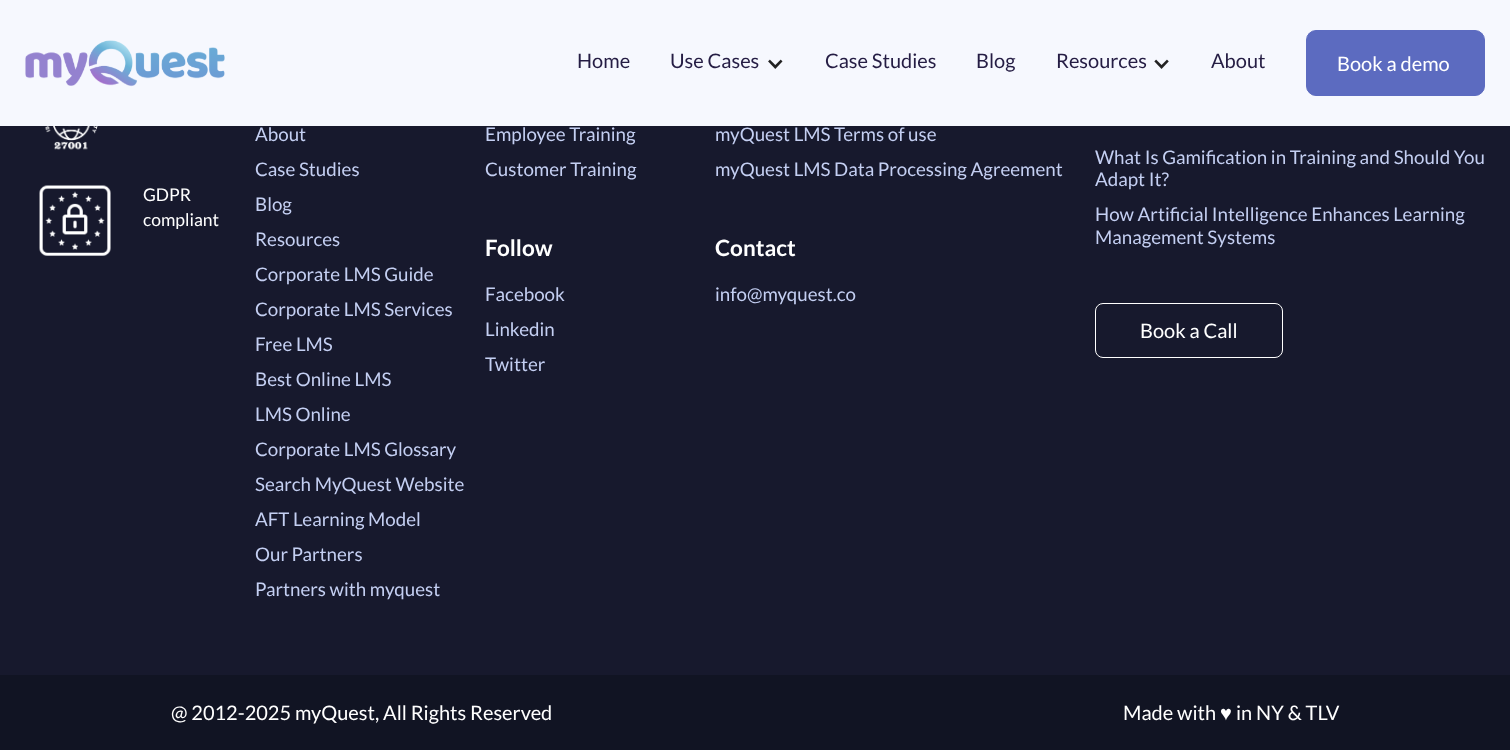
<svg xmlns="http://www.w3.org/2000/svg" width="1510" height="750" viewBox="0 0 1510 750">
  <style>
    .t1 { font: 20px Lato; fill: #251d44; }
    .t2 { font: 20px Lato; fill: #fff; }
    .t3 { font: 17.5px Lato; fill: #fff; }
    .t4 { font: 18.75px Lato; fill: #c4cff2; }
    .t5 { font: bold 22.5px Lato; fill: #fff; }
    .t6 { font: 20px Liberation Sans; fill: #fff; }
  </style>
  <rect width="100%" height="100%" fill="#17192d"/>
  <rect x="0" y="0" width="1510" height="126" fill="#f6f8fe"/>
  <image x="25" y="40" width="200" height="47" href="images/1.png"/>
  <text x="577" y="68" class="t1">Home</text>
  <text x="670" y="68" class="t1">Use Cases</text>
  <image x="768" y="59" width="15" height="10" href="images/2.png"/>
  <text x="825" y="68" class="t1">Case Studies</text>
  <text x="976" y="68" class="t1">Blog</text>
  <text x="1056" y="68" class="t1">Resources</text>
  <image x="1154" y="59" width="15" height="10" href="images/3.png"/>
  <text x="1211" y="68" class="t1">About</text>
  <rect x="1306.5" y="30.5" width="178" height="65" rx="9.5" fill="#5c6bc0" stroke="#5c6bc0"/>
  <text x="1337" y="71" class="t2">Book a demo</text>
  <image x="45" y="126" width="53" height="24" href="images/4.png"/>
  <image x="39" y="185" width="72" height="71" href="images/5.png"/>
  <text x="143" y="201" class="t3">GDPR</text>
  <text x="143" y="226" class="t3">compliant</text>
  <text x="255" y="141" class="t4">About</text>
  <text x="255" y="176" class="t4">Case Studies</text>
  <text x="255" y="211" class="t4">Blog</text>
  <text x="255" y="246" class="t4">Resources</text>
  <text x="255" y="281" class="t4">Corporate LMS Guide</text>
  <text x="255" y="316" class="t4">Corporate LMS Services</text>
  <text x="255" y="351" class="t4">Free LMS</text>
  <text x="255" y="386" class="t4">Best Online LMS</text>
  <text x="255" y="421" class="t4">LMS Online</text>
  <text x="255" y="456" class="t4">Corporate LMS Glossary</text>
  <text x="255" y="491" class="t4">Search MyQuest Website</text>
  <text x="255" y="526" class="t4">AFT Learning Model</text>
  <text x="255" y="561" class="t4">Our Partners</text>
  <text x="255" y="596" class="t4">Partners with myquest</text>
  <text x="485" y="141" class="t4">Employee Training</text>
  <text x="485" y="176" class="t4">Customer Training</text>
  <text x="485" y="256" class="t5">Follow</text>
  <text x="485" y="301" class="t4">Facebook</text>
  <text x="485" y="336" class="t4">Linkedin</text>
  <text x="485" y="371" class="t4">Twitter</text>
  <text x="715" y="141" class="t4">myQuest LMS Terms of use</text>
  <text x="715" y="176" class="t4">myQuest LMS Data Processing Agreement</text>
  <text x="715" y="256" class="t5">Contact</text>
  <text x="715" y="301" class="t4">info@myquest.co</text>
  <text x="1095" y="164" class="t4">What Is Gamification in Training and Should You</text>
  <text x="1095" y="186" class="t4">Adapt It?</text>
  <text x="1095" y="221" class="t4">How Artificial Intelligence Enhances Learning</text>
  <text x="1095" y="244" class="t4">Management Systems</text>
  <rect x="1095.5" y="303.5" width="187" height="54" rx="7.5" fill="none" stroke="#fff"/>
  <text x="1140" y="338" class="t2">Book a Call</text>
  <rect x="0" y="675" width="1510" height="75" fill="#111423"/>
  <text x="171" y="720" class="t2">@ 2012-2025 myQuest, All Rights Reserved</text>
  <text x="1123" y="720" class="t2">Made with</text>
  <text x="1220" y="720" class="t6">♥</text>
  <text x="1236" y="720" class="t2">in NY &amp; TLV</text>
</svg>
